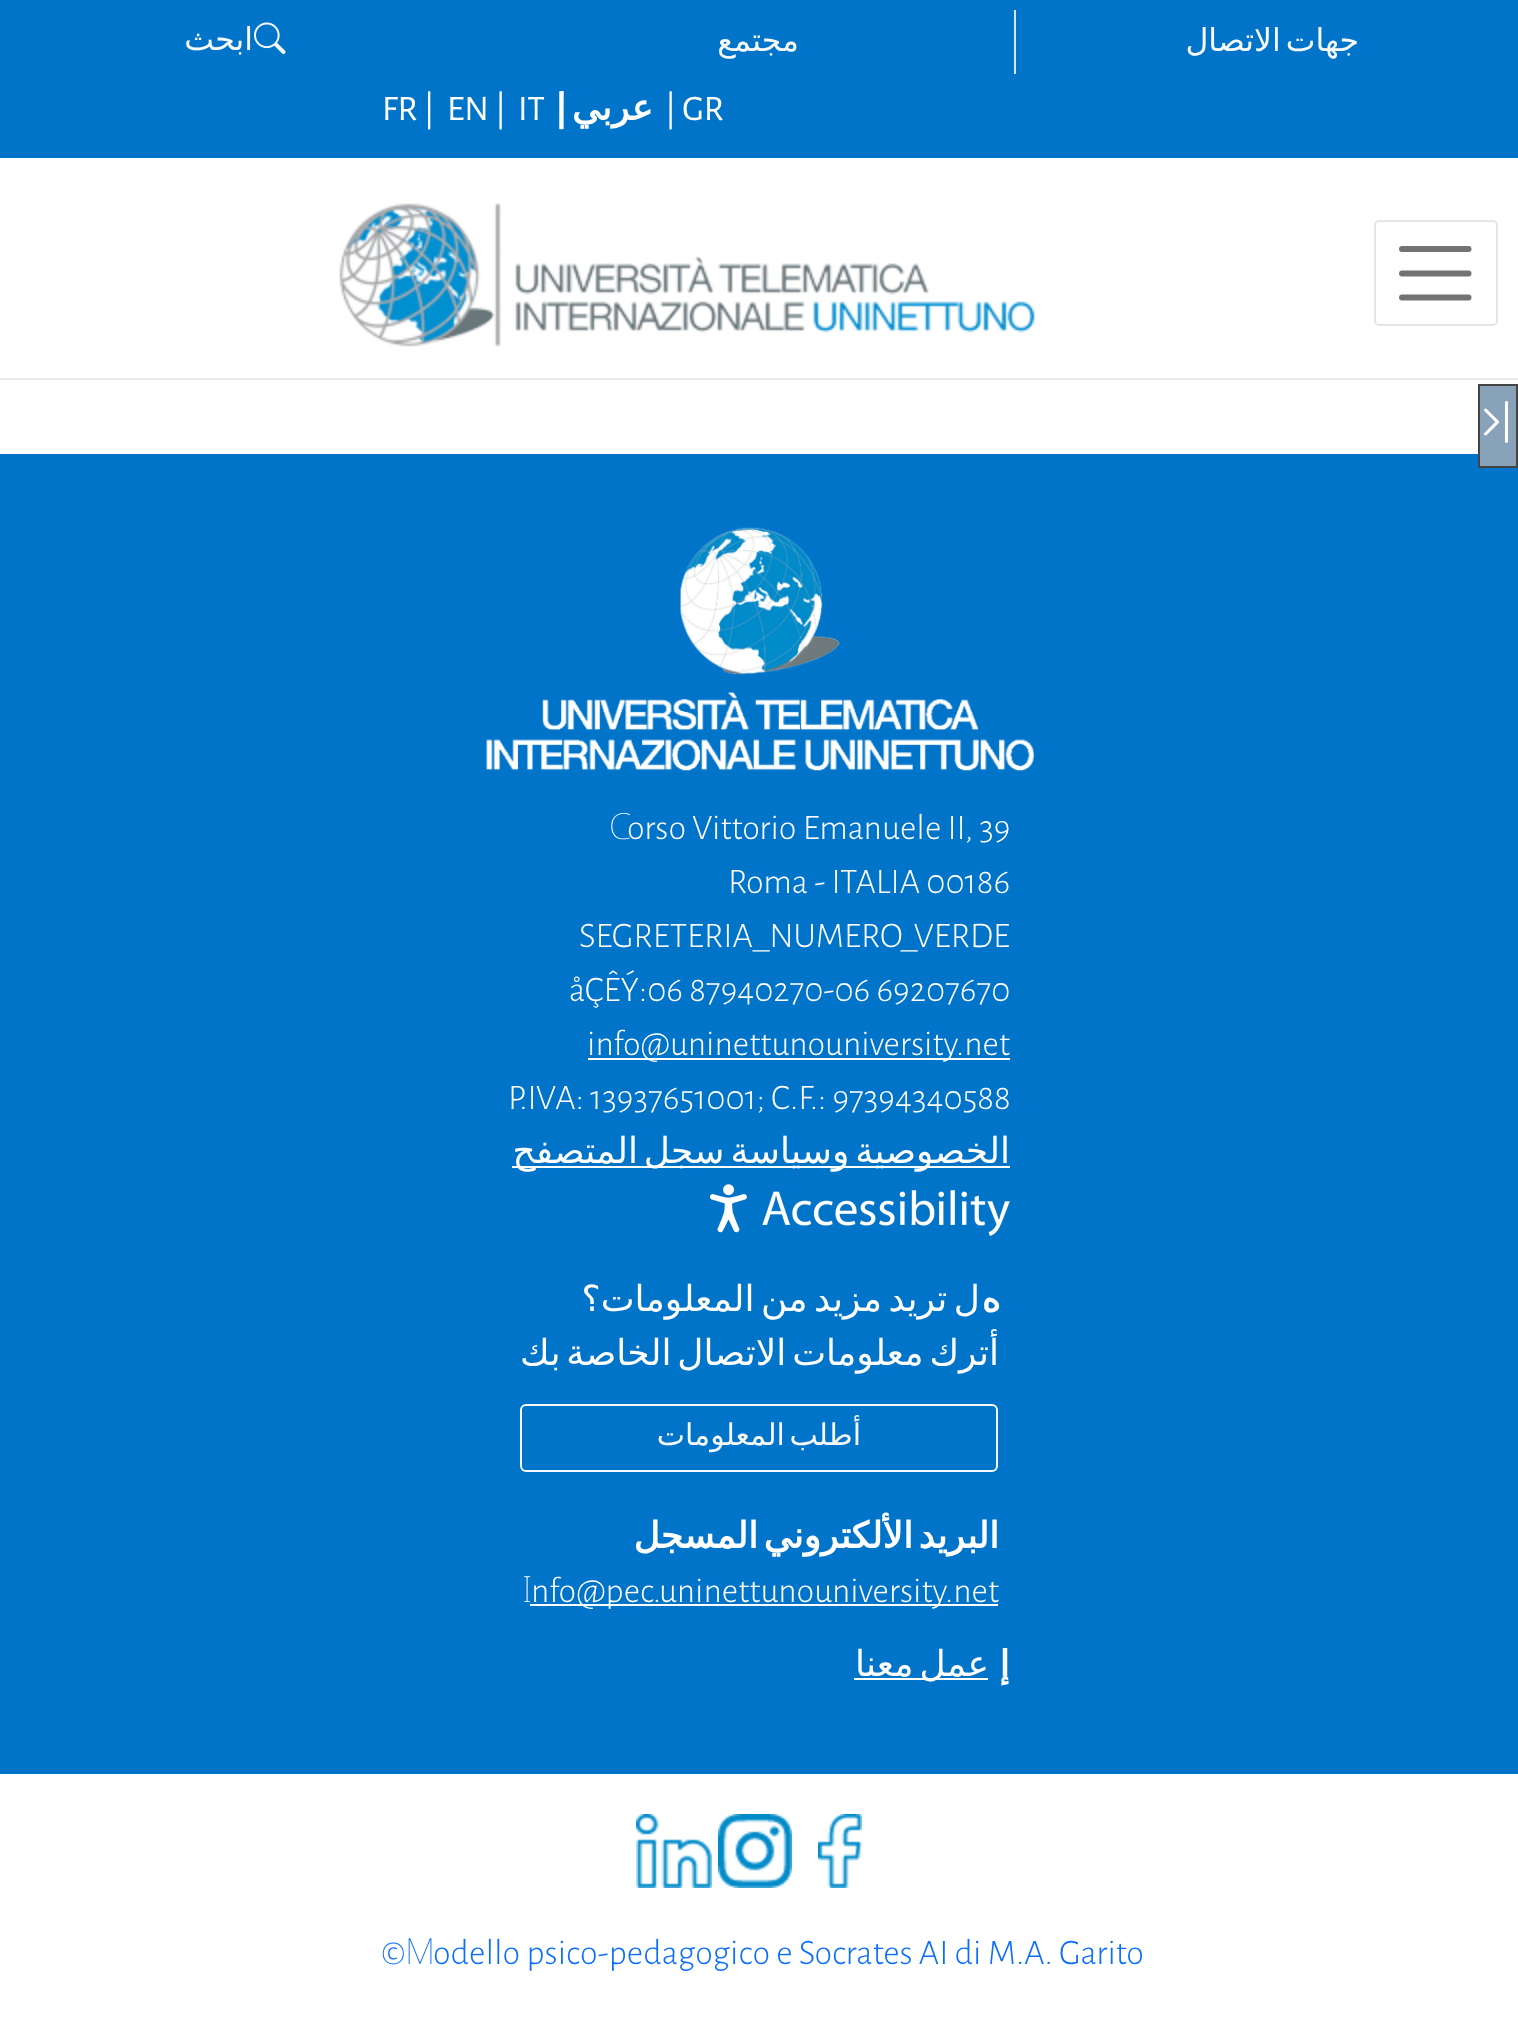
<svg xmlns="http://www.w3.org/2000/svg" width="1518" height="2022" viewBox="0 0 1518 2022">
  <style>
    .t1 { font: 31.5px DejaVu Sans; direction: rtl; fill: #f8f9fa; }
    .t2 { font: 36px Alegreya Sans; fill: #fff; }
    .t3 { font: 800 36px Alegreya Sans; direction: rtl; fill: #fff; }
    .t4 { font: bold 36px DejaVu Sans; direction: rtl; fill: #fff; }
    .t5 { font: 100 36px Noto Sans; fill: #fff; }
    .t6 { font: 300 36px Alegreya Sans; fill: #fff; }
    .t7 { font: 36px DejaVu Sans; direction: rtl; fill: #fff; }
    .t8 { font: 900 36px Noto Sans; direction: rtl; fill: #fff; }
    .t9 { font: 30px DejaVu Sans; direction: rtl; fill: #f8f9fa; }
    .t10 { font: 300 36px Alegreya Sans; fill: #0d6efd; }
    .t11 { font: 100 36px Noto Sans; fill: #0d6efd; }
  </style>
  <rect width="100%" height="100%" fill="#fff"/>
  <rect x="0" y="378" width="1518" height="2" fill="#e8e8e8"/>
  <rect x="0" y="0" width="1518" height="158" fill="#0074c9"/>
  <text x="253" y="50" class="t1">ابحث</text>
  <image x="254" y="22" width="32" height="32" href="images/1.png"/>
  <rect x="1014" y="10" width="2" height="64" fill="#dee2e6"/>
  <text x="799" y="51" class="t1">مجتمع</text>
  <text x="1359" y="51" word-spacing="-5" class="t1">جهات الاتصال</text>
  <text x="382" y="120" class="t2">FR |</text>
  <text x="447" y="120" class="t2">EN |</text>
  <text x="518" y="120" class="t2">IT</text>
  <text x="567" y="120" class="t3">|</text>
  <text x="653" y="120" class="t4">عربي</text>
  <text x="665" y="120" class="t2">| GR</text>
  <image x="339" y="203" width="696" height="144" href="images/2.png"/>
  <rect x="1375" y="221" width="122" height="104" rx="4" fill="none" stroke="#e6e6e6" stroke-width="2"/>
  <path d="M1402 249H1468.5M1402 273.5H1468.5M1402 297.5H1468.5" fill="none" stroke="#737373" stroke-width="6" stroke-linecap="round"/>
  <rect x="0" y="454" width="1518" height="1320" fill="#0074c9"/>
  <rect x="1479" y="385" width="38" height="82" fill="#87a2b9" stroke="#444" stroke-width="2"/>
  <image x="1484" y="401" width="24" height="42" href="images/3.png"/>
  <image x="486" y="527" width="548" height="244" href="images/4.png"/>
  <text x="609" y="839" class="t5">C</text>
  <text x="627" y="839" class="t6">orso Vittorio Emanuele II, 39</text>
  <text x="728" y="893" class="t6">Roma - ITALIA 00186</text>
  <text x="579" y="947" class="t6">SEGRETERIA_NUMERO_VERDE</text>
  <text x="569" y="1001" class="t6">åÇÊÝ:06 87940270-06 69207670</text>
  <rect x="588" y="1058" width="422" height="2" fill="#fff"/>
  <text x="587" y="1055" class="t6">info@uninettunouniversity.net</text>
  <text x="508" y="1109" class="t6">P.IVA: 13937651001; C.F.: 97394340588</text>
  <rect x="512" y="1166" width="498" height="2" fill="#fff"/>
  <text x="1010" y="1163" word-spacing="-5.5" class="t7">الخصوصية وسياسة سجل المتصفح</text>
  <image x="710" y="1184" width="300" height="52" href="images/5.png"/>
  <text x="1001" y="1311" class="t8">ه</text>
  <text x="980" y="1311" word-spacing="-5" class="t7">ل تريد مزيد من المعلومات؟</text>
  <text x="999" y="1365" word-spacing="-5.5" class="t7">أترك معلومات الاتصال الخاصة بك</text>
  <rect x="521" y="1405" width="476" height="66" rx="5" fill="none" stroke="#f8f9fa" stroke-width="2"/>
  <text x="861" y="1445" word-spacing="-5" class="t9">أطلب المعلومات</text>
  <text x="999" y="1548" word-spacing="-6" class="t4">البريد الألكتروني المسجل</text>
  <text x="522" y="1602" class="t5">I</text>
  <rect x="530" y="1604" width="468" height="2" fill="#fff"/>
  <text x="531" y="1602" class="t6">nfo@pec.uninettunouniversity.net</text>
  <rect x="854" y="1678" width="134" height="2" fill="#fff"/>
  <text x="989" y="1676" word-spacing="-5.5" class="t7">عمل معنا</text>
  <text x="1010" y="1676" class="t8">إ</text>
  <image x="636" y="1814" width="76" height="74" href="images/6.png"/>
  <image x="718" y="1814" width="74" height="74" href="images/7.png"/>
  <image x="818" y="1814" width="44" height="74" href="images/8.png"/>
  <text x="381" y="1964" class="t10">©</text>
  <text x="405" y="1964" class="t11">M</text>
  <text x="433" y="1964" class="t10">odello psico-pedagogico e Socrates AI di M.A. Garito</text>
</svg>
